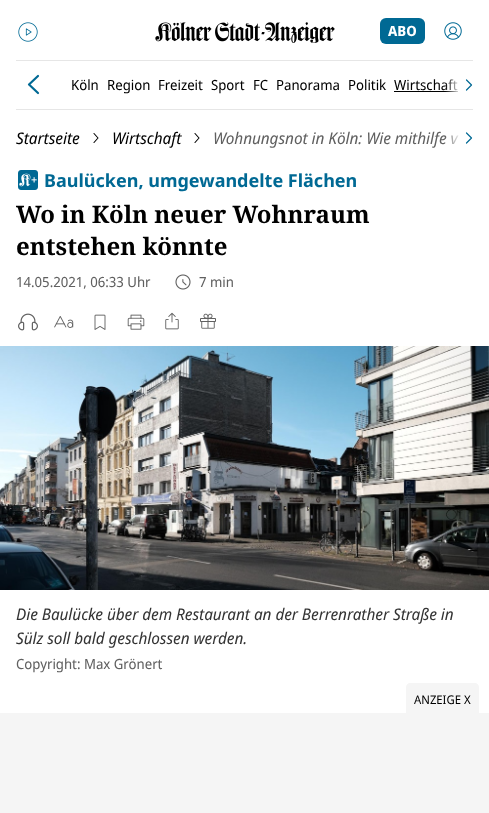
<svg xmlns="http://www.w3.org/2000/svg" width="489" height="813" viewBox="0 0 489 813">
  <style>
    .t1 { font: bold 14px Noto Sans Display; fill: #fff; }
    .t2 { font: 14px Noto Sans Display; fill: #000; }
    .t3 { font: italic 16px Noto Sans Display; fill: #000; }
    .t4 { font: italic 16px Noto Sans Display; fill: #606060; }
    .t5 { font: bold 18px Noto Sans; fill: #006994; }
    .t6 { font: bold 24px Noto Serif; fill: #000; }
    .t7 { font: 14px Noto Sans Display; fill: #606060; }
    .t8 { font: italic 16px Noto Sans Display; fill: #333; }
    .t9 { font: 12px Noto Sans Display; fill: #000; }
  </style>
  <defs>
    <linearGradient id="g1" gradientUnits="userSpaceOnUse" x1="477" y1="85" x2="445" y2="85"><stop offset="0" stop-color="#fff"/><stop offset="0.5" stop-color="#fff"/><stop offset="1" stop-color="#fff" stop-opacity="0"/></linearGradient>
    <linearGradient id="g2" gradientUnits="userSpaceOnUse" x1="477" y1="138" x2="445" y2="138"><stop offset="0" stop-color="#fff"/><stop offset="0.5" stop-color="#fff"/><stop offset="1" stop-color="#fff" stop-opacity="0"/></linearGradient>
  </defs>
  <rect width="100%" height="100%" fill="#fff"/>
  <image x="18" y="22" width="20" height="20" href="images/1.png"/>
  <image x="155" y="22" width="180" height="21" href="images/2.png"/>
  <rect x="380" y="18" width="45" height="26" rx="6" fill="#006994"/>
  <text x="388" y="36" class="t1">ABO</text>
  <image x="444" y="22" width="18" height="18" href="images/3.png"/>
  <rect x="16" y="60" width="457" height="1" fill="#e6e6e6"/>
  <rect x="16" y="109" width="457" height="1" fill="#e6e6e6"/>
  <path d="M38 76L29 84.5L38 93" fill="none" stroke="#006994" stroke-width="2.2" stroke-linecap="round" stroke-linejoin="round"/>
  <text x="71" y="90" class="t2">Köln</text>
  <text x="107" y="90" class="t2">Region</text>
  <text x="158" y="90" class="t2">Freizeit</text>
  <text x="211" y="90" class="t2">Sport</text>
  <text x="253" y="90" class="t2">FC</text>
  <text x="276" y="90" class="t2">Panorama</text>
  <text x="348" y="90" class="t2">Politik</text>
  <text x="394" y="90" class="t2">Wirtschaft</text>
  <rect x="394" y="91" width="64" height="1" fill="#000"/>
  <rect x="445" y="79" width="13" height="13" fill="url(#g1)"/>
  <path d="M466.5 90L471.5 85L466.5 80" fill="none" stroke="#006994" stroke-width="1.2" stroke-linecap="round" stroke-linejoin="round"/>
  <text x="16" y="144" class="t3">Startseite</text>
  <path d="M94 142.5L98 138L94 133.5" fill="none" stroke="#000" stroke-width="1.1" stroke-linecap="round" stroke-linejoin="round"/>
  <text x="112" y="144" class="t3">Wirtschaft</text>
  <path d="M195 142.5L199 138L195 133.5" fill="none" stroke="#000" stroke-width="1.1" stroke-linecap="round" stroke-linejoin="round"/>
  <text x="213" y="144" class="t4">Wohnungsnot in Köln: Wie mithilfe v</text>
  <rect x="445" y="135" width="14" height="9" fill="url(#g2)"/>
  <path d="M466.5 143L471.5 138L466.5 133" fill="none" stroke="#006994" stroke-width="1.2" stroke-linecap="round" stroke-linejoin="round"/>
  <image x="18" y="170" width="20" height="20" href="images/4.png"/>
  <text x="44" y="187" class="t5">Baulücken, umgewandelte Flächen</text>
  <text x="16" y="223" class="t6">Wo in Köln neuer Wohnraum</text>
  <text x="16" y="255" class="t6">entstehen könnte</text>
  <text x="16" y="287" class="t7">14.05.2021, 06:33 Uhr</text>
  <image x="175" y="274" width="16" height="16" href="images/5.png"/>
  <text x="199" y="287" class="t7">7 min</text>
  <image x="18" y="313" width="20" height="18" href="images/6.png"/>
  <image x="54" y="316" width="20" height="12" href="images/7.png"/>
  <image x="94" y="314" width="12" height="16" href="images/8.png"/>
  <image x="127" y="314" width="18" height="16" href="images/9.png"/>
  <image x="165" y="312" width="14" height="18" href="images/10.png"/>
  <image x="200" y="313" width="16" height="16" href="images/11.png"/>
  <image x="0" y="346" width="489" height="244" href="images/12.png"/>
  <text x="16" y="620" class="t8">Die Baulücke über dem Restaurant an der Berrenrather Straße in</text>
  <text x="16" y="644" class="t8">Sülz soll bald geschlossen werden.</text>
  <text x="16" y="669" class="t7">Copyright: Max Grönert</text>
  <path d="M410 683H475C477 683 479 685 479 687V713H406V687C406 685 408 683 410 683Z" fill="#f5f5f5"/>
  <text x="414" y="704" class="t9">ANZEIGE X</text>
  <rect x="0" y="713" width="489" height="100" fill="#f5f5f5"/>
</svg>
